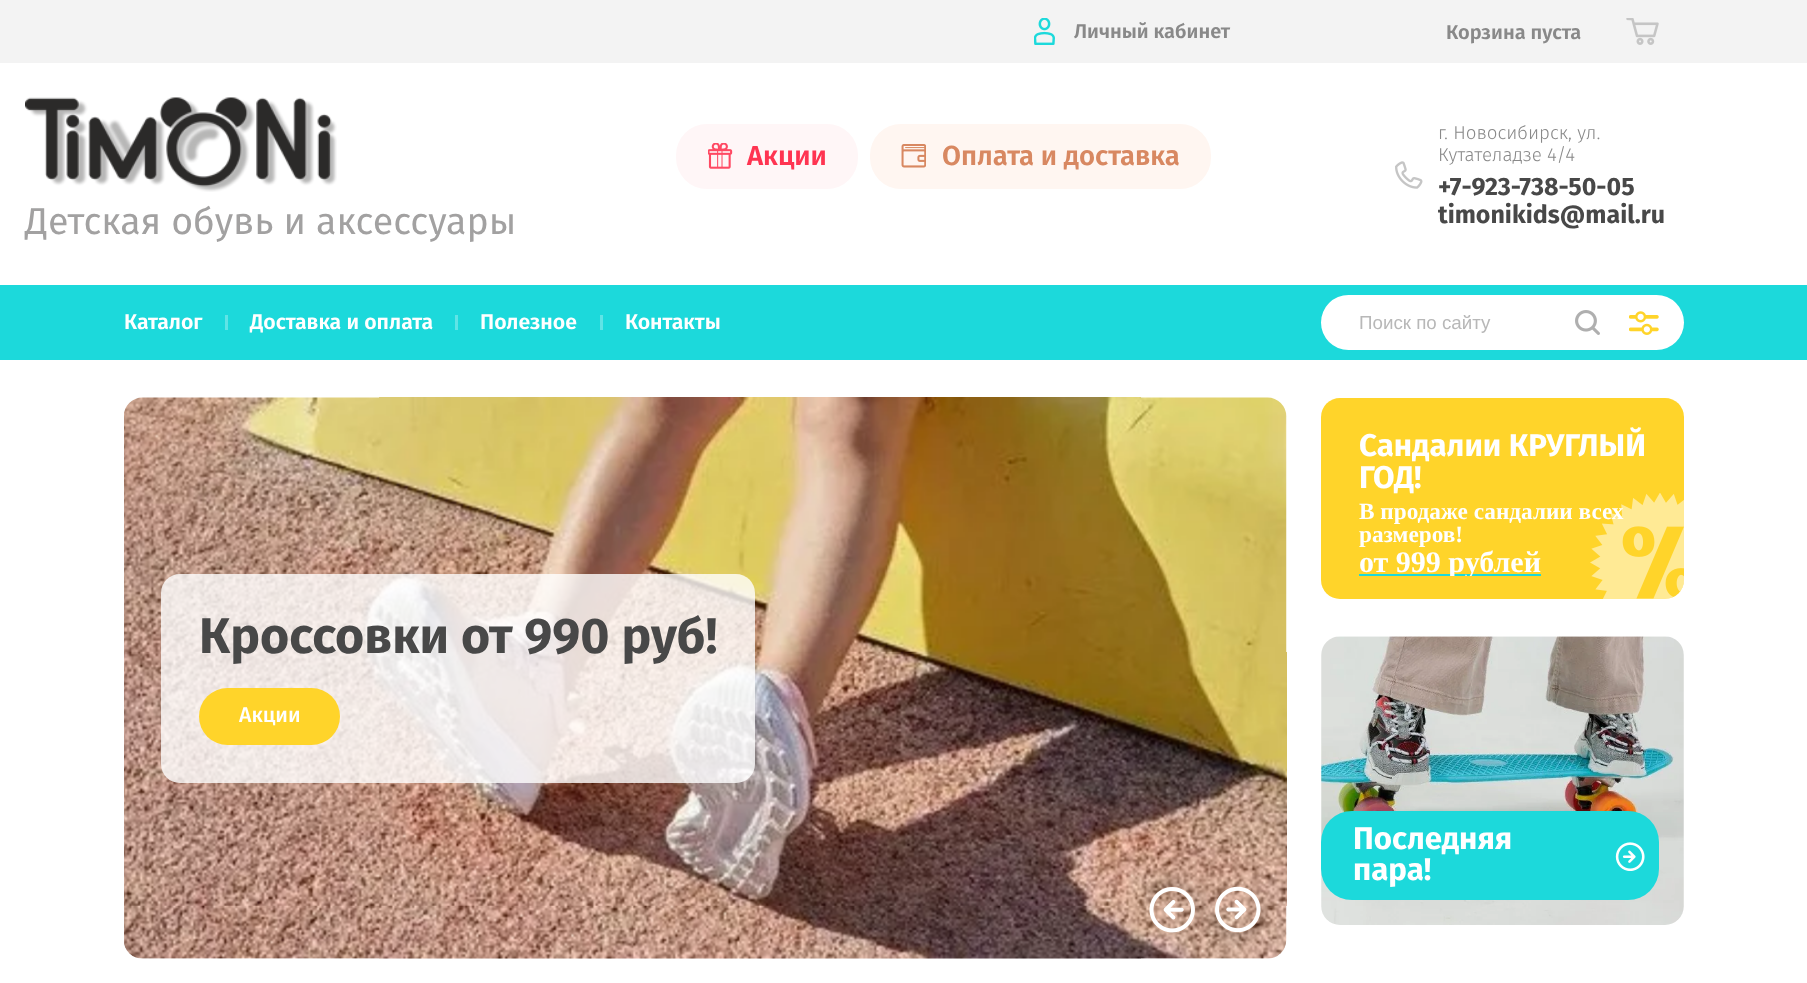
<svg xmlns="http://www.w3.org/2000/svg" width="1807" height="983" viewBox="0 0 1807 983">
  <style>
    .t1 { font: 600 20px Fira Sans; fill: #898989; }
    .t2 { font: 37.5px Fira Sans; fill: #a2a1a1; }
    .t3 { font: 600 27.5px Fira Sans; fill: #ff3451; }
    .t4 { font: 600 27.5px Fira Sans; fill: #d88861; }
    .t5 { font: 300 18.75px Fira Sans; fill: #898989; }
    .t6 { font: bold 25px Fira Sans; fill: #484848; }
    .t7 { font: 600 21.25px Fira Sans; fill: #fff; }
    .t8 { font: 18.75px Liberation Sans; fill: #b8b8b8; }
    .t9 { font: bold 50px Fira Sans; fill: #484848; }
    .t10 { font: 500 21.25px Fira Sans; fill: #fff; }
    .t11 { font: bold 31.25px Fira Sans; fill: #fff; }
    .t12 { font: bold 23.25px Liberation Serif; fill: #fff; }
    .t13 { font: bold 30px Liberation Serif; fill: #fff; }
  </style>
  <defs>
    <clipPath id="clip1"><path d="M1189 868H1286V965H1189ZM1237.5 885C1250.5 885 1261 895.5 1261 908.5V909.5C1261 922.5 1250.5 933 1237.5 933C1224.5 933 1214 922.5 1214 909.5V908.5C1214 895.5 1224.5 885 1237.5 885Z" clip-rule="evenodd"/></clipPath>
    <clipPath id="clip2"><path d="M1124 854H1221V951H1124ZM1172.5 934C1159.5 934 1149 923.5 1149 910C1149 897 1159.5 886.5 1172.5 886.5C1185.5 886.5 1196 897 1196 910C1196 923.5 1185.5 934 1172.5 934Z" clip-rule="evenodd"/></clipPath>
    <clipPath id="clip3"><rect x="1359" y="500" width="296" height="76"/></clipPath>
  </defs>
  <rect width="100%" height="100%" fill="#fff"/>
  <rect x="0" y="0" width="1807" height="63" fill="#f3f3f3"/>
  <image x="1034" y="18" width="21" height="27" href="images/1.png"/>
  <text x="1074" y="38" class="t1">Личный кабинет</text>
  <image x="1626" y="18" width="33" height="27" href="images/2.png"/>
  <text x="1446" y="39" class="t1">Корзина пуста</text>
  <image x="25" y="97" width="312" height="95" href="images/3.png"/>
  <text x="25" y="234" class="t2">Детская обувь и аксессуары</text>
  <rect x="676" y="124" width="182" height="65" rx="31" fill="#fff6f7"/>
  <image x="708" y="143" width="25" height="26" href="images/4.png"/>
  <text x="747" y="165" class="t3">Акции</text>
  <rect x="870" y="124" width="341" height="65" rx="31" fill="#fff6f1"/>
  <image x="901" y="144" width="25" height="24" href="images/5.png"/>
  <text x="942" y="165" class="t4">Оплата и доставка</text>
  <image x="1395" y="161" width="28" height="28" href="images/6.png"/>
  <text x="1438" y="139" class="t5">г. Новосибирск, ул.</text>
  <text x="1438" y="161" class="t5">Кутателадзе 4/4</text>
  <text x="1438" y="195" class="t6">+7-923-738-50-05</text>
  <text x="1438" y="223" class="t6">timonikids@mail.ru</text>
  <rect x="0" y="285" width="1807" height="75" fill="#1cd9db"/>
  <text x="124" y="329" class="t7">Каталог</text>
  <rect x="225" y="315" width="3" height="15" fill="#60e4e6"/>
  <text x="250" y="329" class="t7">Доставка и оплата</text>
  <rect x="455" y="315" width="3" height="15" fill="#60e4e6"/>
  <text x="480" y="329" class="t7">Полезное</text>
  <rect x="600" y="315" width="3" height="15" fill="#60e4e6"/>
  <text x="625" y="329" class="t7">Контакты</text>
  <rect x="1321" y="295" width="363" height="55" rx="27.5" fill="#fff"/>
  <text x="1359" y="329" class="t8">Поиск по сайту</text>
  <image x="1575" y="310" width="25" height="25" href="images/7.png"/>
  <image x="1629" y="311" width="30" height="24" href="images/8.png"/>
  <image x="124" y="397" width="1163" height="562" href="images/9.png"/>
  <rect x="161" y="574" width="594" height="209" rx="19" fill="#ffffffcc"/>
  <text x="199" y="653" class="t9">Кроссовки от 990 руб!</text>
  <rect x="199" y="688" width="141" height="57" rx="28.5" fill="#ffd42a"/>
  <text x="239" y="722" class="t10">Акции</text>
  <g clip-path="url(#clip1)">
    <rect x="1214" y="893" width="47" height="47" rx="23.5" fill="#00000033" filter="blur(8px)"/>
  </g>
  <image x="1215" y="886" width="46" height="47" href="images/11.png"/>
  <g clip-path="url(#clip2)">
    <rect x="1149" y="879" width="47" height="47" rx="23.5" fill="#00000033" filter="blur(8px)"/>
  </g>
  <image x="1149" y="887" width="46" height="46" href="images/10.png"/>
  <rect x="1321" y="398" width="363" height="201" rx="19" fill="#ffd42a"/>
  <text x="1359" y="456" class="t11">Сандалии КРУГЛЫЙ</text>
  <text x="1359" y="488" class="t11">ГОД!</text>
  <image x="1590" y="493" width="94" height="106" href="images/12.png"/>
  <text x="1359" y="519" class="t12">В продаже сандалии всех</text>
  <text x="1359" y="542" class="t12">размеров!</text>
  <rect x="1359" y="574" width="182" height="2" fill="#1cd9db"/>
  <g clip-path="url(#clip3)">
    <text x="1359" y="572" class="t13">от 999 рублей</text>
  </g>
  <image x="1321" y="636" width="363" height="289" href="images/13.png"/>
  <rect x="1321" y="811" width="338" height="89" rx="31" fill="#1cd9db"/>
  <text x="1353" y="849" class="t11">Последняя</text>
  <image x="1615" y="842" width="30" height="29" href="images/14.png"/>
  <text x="1353" y="880" class="t11">пара!</text>
</svg>
